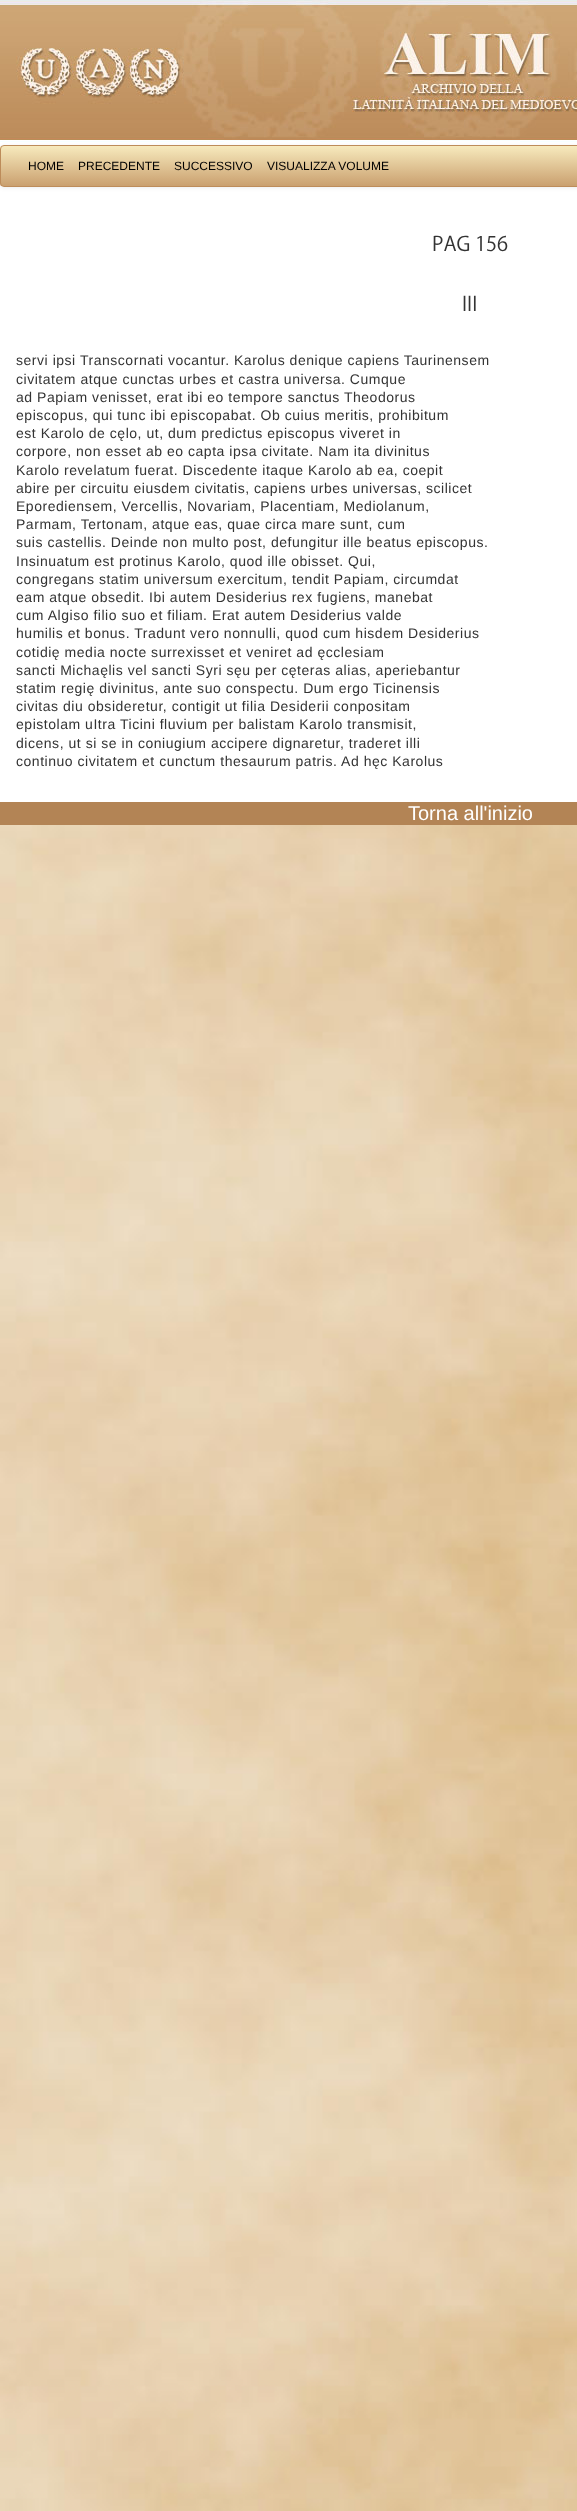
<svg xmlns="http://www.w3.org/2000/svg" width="577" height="2511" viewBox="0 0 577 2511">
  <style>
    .t1 { font: 12px Liberation Sans; fill: #000; }
    .t2 { font: 20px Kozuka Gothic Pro; fill: #333; }
    .t3 { font: 14px Liberation Sans; letter-spacing: 0.53px; fill: #333; }
    .t4 { font: 20px Liberation Sans; fill: #fff; }
  </style>
  <defs>
    <clipPath id="clip1"><rect x="0" y="145" width="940" height="42" rx="4"/></clipPath>
    <linearGradient id="g1" gradientUnits="userSpaceOnUse" x1="470" y1="146" x2="470" y2="186"><stop offset="0" stop-color="#f7eabd"/><stop offset="1" stop-color="#caa06f"/></linearGradient>
  </defs>
  <rect width="100%" height="100%" fill="#fff"/>
  <image x="0" y="825" width="577" height="1686" href="images/1.png"/>
  <rect x="0" y="146" width="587" height="42" rx="4" fill="#00000012" filter="blur(2px)"/>
  <image x="0" y="0" width="577" height="142" href="images/2.png"/>
  <g clip-path="url(#clip1)">
    <rect x="0" y="146" width="577" height="40" fill="url(#g1)"/>
  </g>
  <rect x="0.5" y="145.5" width="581" height="41" rx="3.5" fill="none" stroke="#bd8c5a"/>
  <text x="28" y="170" class="t1">HOME</text>
  <text x="78" y="170" class="t1">PRECEDENTE</text>
  <text x="174" y="170" class="t1">SUCCESSIVO</text>
  <text x="267" y="170" class="t1">VISUALIZZA VOLUME</text>
  <text x="432" y="251" class="t2">PAG 156</text>
  <text x="462" y="311" class="t2">III</text>
  <text x="16" y="365" class="t3">servi ipsi Transcornati vocantur. Karolus denique capiens Taurinensem</text>
  <text x="16" y="384" class="t3">civitatem atque cunctas urbes et castra universa. Cumque</text>
  <text x="16" y="402" class="t3">ad Papiam venisset, erat ibi eo tempore sanctus Theodorus</text>
  <text x="16" y="420" class="t3">episcopus, qui tunc ibi episcopabat. Ob cuius meritis, prohibitum</text>
  <text x="16" y="438" class="t3">est Karolo de cęlo, ut, dum predictus episcopus viveret in</text>
  <text x="16" y="456" class="t3">corpore, non esset ab eo capta ipsa civitate. Nam ita divinitus</text>
  <text x="16" y="475" class="t3">Karolo revelatum fuerat. Discedente itaque Karolo ab ea, coepit</text>
  <text x="16" y="493" class="t3">abire per circuitu eiusdem civitatis, capiens urbes universas, scilicet</text>
  <text x="16" y="511" class="t3">Eporediensem, Vercellis, Novariam, Placentiam, Mediolanum,</text>
  <text x="16" y="529" class="t3">Parmam, Tertonam, atque eas, quae circa mare sunt, cum</text>
  <text x="16" y="547" class="t3">suis castellis. Deinde non multo post, defungitur ille beatus episcopus.</text>
  <text x="16" y="566" class="t3">Insinuatum est protinus Karolo, quod ille obisset. Qui,</text>
  <text x="16" y="584" class="t3">congregans statim universum exercitum, tendit Papiam, circumdat</text>
  <text x="16" y="602" class="t3">eam atque obsedit. Ibi autem Desiderius rex fugiens, manebat</text>
  <text x="16" y="620" class="t3">cum Algiso filio suo et filiam. Erat autem Desiderius valde</text>
  <text x="16" y="638" class="t3">humilis et bonus. Tradunt vero nonnulli, quod cum hisdem Desiderius</text>
  <text x="16" y="657" class="t3">cotidię media nocte surrexisset et veniret ad ęcclesiam</text>
  <text x="16" y="675" class="t3">sancti Michaęlis vel sancti Syri sęu per cęteras alias, aperiebantur</text>
  <text x="16" y="693" class="t3">statim regię divinitus, ante suo conspectu. Dum ergo Ticinensis</text>
  <text x="16" y="711" class="t3">civitas diu obsideretur, contigit ut filia Desiderii conpositam</text>
  <text x="16" y="729" class="t3">epistolam uItra Ticini fluvium per balistam Karolo transmisit,</text>
  <text x="16" y="748" class="t3">dicens, ut si se in coniugium accipere dignaretur, traderet illi</text>
  <text x="16" y="766" class="t3">continuo civitatem et cunctum thesaurum patris. Ad hęc Karolus</text>
  <rect x="0" y="802" width="577" height="23" fill="#b38455"/>
  <text x="408" y="820" class="t4">Torna all'inizio</text>
</svg>
